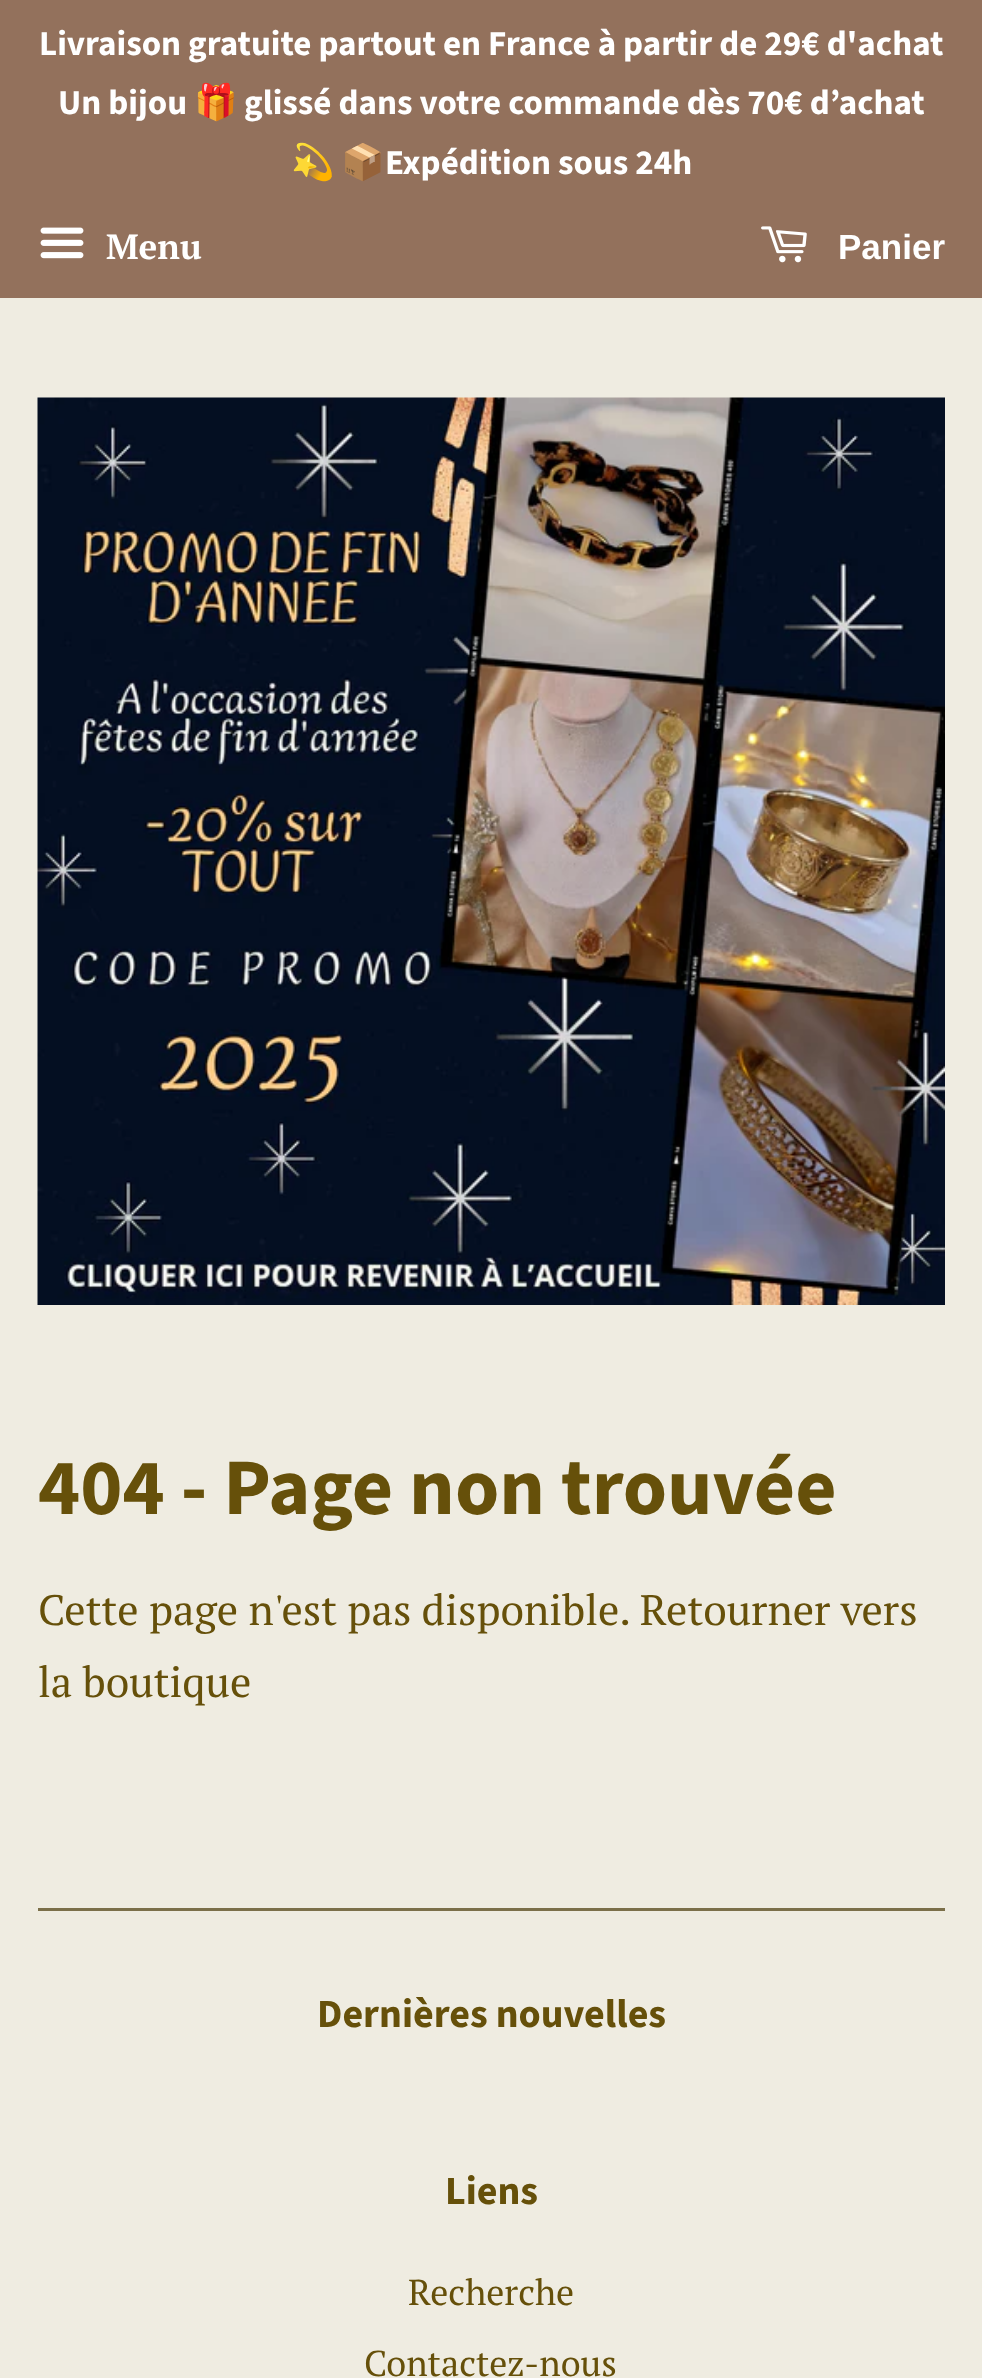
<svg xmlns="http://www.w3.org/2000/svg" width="982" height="2378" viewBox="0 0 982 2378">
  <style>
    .t1 { font: bold 35px Source Sans Pro; fill: #fff; }
    .t2 { font: bold 35px Noto Color Emoji; fill: #fff; }
    .t3 { font: bold 35px PT Serif; fill: #fff; }
    .t4 { font: bold 35px Liberation Sans; fill: #fff; }
    .t5 { font: bold 80px Source Sans Pro; fill: #66500a; }
    .t6 { font: 42.5px PT Serif; fill: #66500a; }
    .t7 { font: bold 40px Source Sans Pro; fill: #66500a; }
    .t8 { font: 36px PT Serif; fill: #66500a; }
  </style>
  <rect width="100%" height="100%" fill="#efece1"/>
  <rect x="0" y="0" width="982" height="298" fill="#93715c"/>
  <text x="39" y="55" class="t1">Livraison gratuite partout en France à partir de 29€ d'achat</text>
  <text x="58" y="114" class="t1">Un bijou</text>
  <text x="194" y="114" class="t2">🎁</text>
  <text x="244" y="114" class="t1">glissé dans votre commande dès 70€ d’achat</text>
  <text x="291" y="174" class="t2">💫</text>
  <text x="341" y="174" class="t2">📦</text>
  <text x="385" y="174" class="t1">Expédition sous 24h</text>
  <image x="40" y="227" width="44" height="32" href="images/1.png"/>
  <text x="106" y="259" class="t3">Menu</text>
  <image x="761" y="226" width="46" height="37" href="images/2.png"/>
  <text x="838" y="259" class="t4">Panier</text>
  <image x="37" y="397" width="908" height="908" href="images/3.png"/>
  <text x="38" y="1514" class="t5">404 - Page non trouvée</text>
  <text x="38" y="1625" class="t6">Cette page n'est pas disponible. Retourner vers</text>
  <text x="38" y="1697" class="t6">la boutique</text>
  <rect x="38" y="1908" width="907" height="3" fill="#7b6f49"/>
  <text x="317" y="2027" class="t7">Dernières nouvelles</text>
  <text x="445" y="2204" class="t7">Liens</text>
  <text x="408" y="2305" class="t8">Recherche</text>
  <text x="364" y="2376" class="t8">Contactez-nous</text>
</svg>
